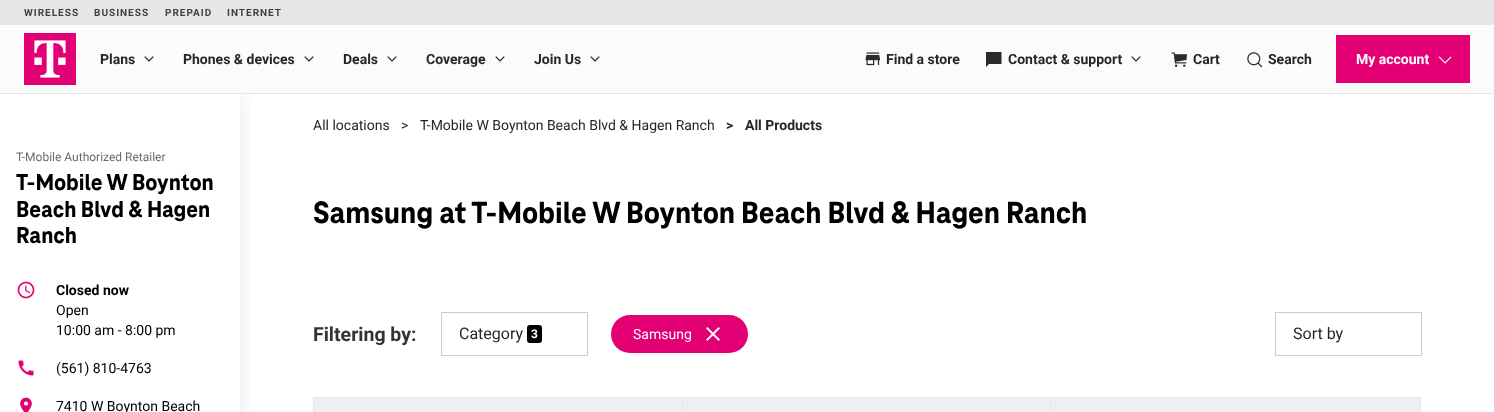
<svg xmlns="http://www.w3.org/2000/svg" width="1494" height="412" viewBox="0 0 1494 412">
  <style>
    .t1 { font: bold 10px Roboto; letter-spacing: 1px; fill: #414141; }
    .t2 { font: bold 14px Roboto; fill: #262626; }
    .t3 { font: bold 14px Roboto; fill: #fff; }
    .t4 { font: 12px Roboto; fill: #6a6a6a; }
    .t5 { font: 800 24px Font; fill: #000; }
    .t6 { font: bold 14px Roboto; fill: #000; }
    .t7 { font: 14px Roboto; fill: #000; }
    .t8 { font: 14px Roboto; fill: #262626; }
    .t9 { font: 800 32px Font; fill: #000; }
    .t10 { font: bold 19.5px Roboto; fill: #333; }
    .t11 { font: 16px Roboto; fill: #262626; }
    .t12 { font: bold 12px Roboto; fill: #fff; }
    .t13 { font: 14px Roboto; fill: #fff; }
  </style>
  <defs>
    <clipPath id="clip1"><rect x="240" y="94" width="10" height="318"/></clipPath>
  </defs>
  <rect width="100%" height="100%" fill="#fff"/>
  <g clip-path="url(#clip1)">
    <rect x="0" y="94" width="240" height="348" fill="#4747471f" filter="blur(10px)"/>
  </g>
  <rect x="0" y="93" width="1494" height="1" fill="#e6e6e6"/>
  <rect x="0" y="25" width="1494" height="68" fill="#fbfbfb"/>
  <rect x="0" y="0" width="1494" height="25" fill="#e6e6e6"/>
  <text x="24" y="16" class="t1">WIRELESS</text>
  <text x="94" y="16" class="t1">BUSINESS</text>
  <text x="165" y="16" class="t1">PREPAID</text>
  <text x="227" y="16" class="t1">INTERNET</text>
  <image x="24" y="33" width="52" height="52" href="images/1.png"/>
  <text x="100" y="64" class="t2">Plans</text>
  <image x="144" y="56" width="10" height="6" href="images/2.png"/>
  <text x="183" y="64" class="t2">Phones &amp; devices</text>
  <image x="304" y="56" width="10" height="6" href="images/2.png"/>
  <text x="343" y="64" class="t2">Deals</text>
  <image x="387" y="56" width="10" height="6" href="images/2.png"/>
  <text x="426" y="64" class="t2">Coverage</text>
  <image x="495" y="56" width="10" height="6" href="images/2.png"/>
  <text x="534" y="64" class="t2">Join Us</text>
  <image x="590" y="56" width="10" height="6" href="images/2.png"/>
  <image x="865" y="52" width="16" height="14" href="images/3.png"/>
  <text x="886" y="64" class="t2">Find a store</text>
  <path d="M986 67V52H1001.5V64H989Z" fill="#2b2b2b"/>
  <text x="1008" y="64" class="t2">Contact &amp; support</text>
  <image x="1131" y="56" width="10" height="6" href="images/2.png"/>
  <image x="1171" y="52" width="16" height="15" href="images/4.png"/>
  <text x="1193" y="64" class="t2">Cart</text>
  <image x="1247" y="52" width="16" height="16" href="images/5.png"/>
  <text x="1268" y="64" class="t2">Search</text>
  <rect x="1336" y="35" width="134" height="48" fill="#e20074"/>
  <text x="1356" y="64" class="t3">My account</text>
  <image x="1438" y="56" width="14" height="8" href="images/6.png"/>
  <text x="16" y="161" class="t4">T-Mobile Authorized Retailer</text>
  <text x="16" y="190" class="t5">T-Mobile W Boynton</text>
  <text x="16" y="217" class="t5">Beach Blvd &amp; Hagen</text>
  <text x="16" y="243" class="t5">Ranch</text>
  <image x="17" y="281" width="18" height="18" href="images/7.png"/>
  <text x="56" y="295" class="t6">Closed now</text>
  <text x="56" y="315" class="t7">Open</text>
  <text x="56" y="335" class="t7">10:00 am - 8:00 pm</text>
  <image x="18" y="360" width="16" height="16" href="images/8.png"/>
  <text x="56" y="373" class="t7">(561) 810-4763</text>
  <image x="20" y="397" width="12" height="15" href="images/9.png"/>
  <text x="56" y="411" class="t7">7410 W Boynton Beach</text>
  <text x="313" y="130" class="t8">All locations</text>
  <text x="401" y="130" class="t8">&gt;</text>
  <text x="420" y="130" class="t8">T-Mobile W Boynton Beach Blvd &amp; Hagen Ranch</text>
  <text x="726" y="130" class="t2">&gt;</text>
  <text x="745" y="130" class="t2">All Products</text>
  <text x="313" y="223" class="t9">Samsung at T-Mobile W Boynton Beach Blvd &amp; Hagen Ranch</text>
  <text x="313" y="341" class="t10">Filtering by:</text>
  <rect x="527" y="325" width="15" height="18" rx="3" fill="#000"/>
  <rect x="441.5" y="312.5" width="146" height="43" fill="none" stroke="#ccc"/>
  <text x="459" y="339" class="t11">Category</text>
  <text x="531" y="338" class="t12">3</text>
  <rect x="611" y="315" width="137" height="38" rx="19" fill="#e20074"/>
  <text x="633" y="339" class="t13">Samsung</text>
  <image x="706" y="327" width="14" height="14" href="images/10.png"/>
  <rect x="1275.5" y="312.5" width="146" height="43" fill="none" stroke="#ccc"/>
  <text x="1293" y="339" class="t11">Sort by</text>
  <rect x="314" y="398" width="368" height="14" fill="#efefef"/>
  <rect x="313.5" y="397.5" width="370" height="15" fill="none" stroke="#e7e7e8"/>
  <rect x="683" y="398" width="367" height="14" fill="#efefef"/>
  <rect x="682.5" y="397.5" width="369" height="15" fill="none" stroke="#e7e7e8"/>
  <rect x="1050.5" y="397.5" width="370" height="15" fill="#efefef" stroke="#e7e7e8"/>
</svg>
